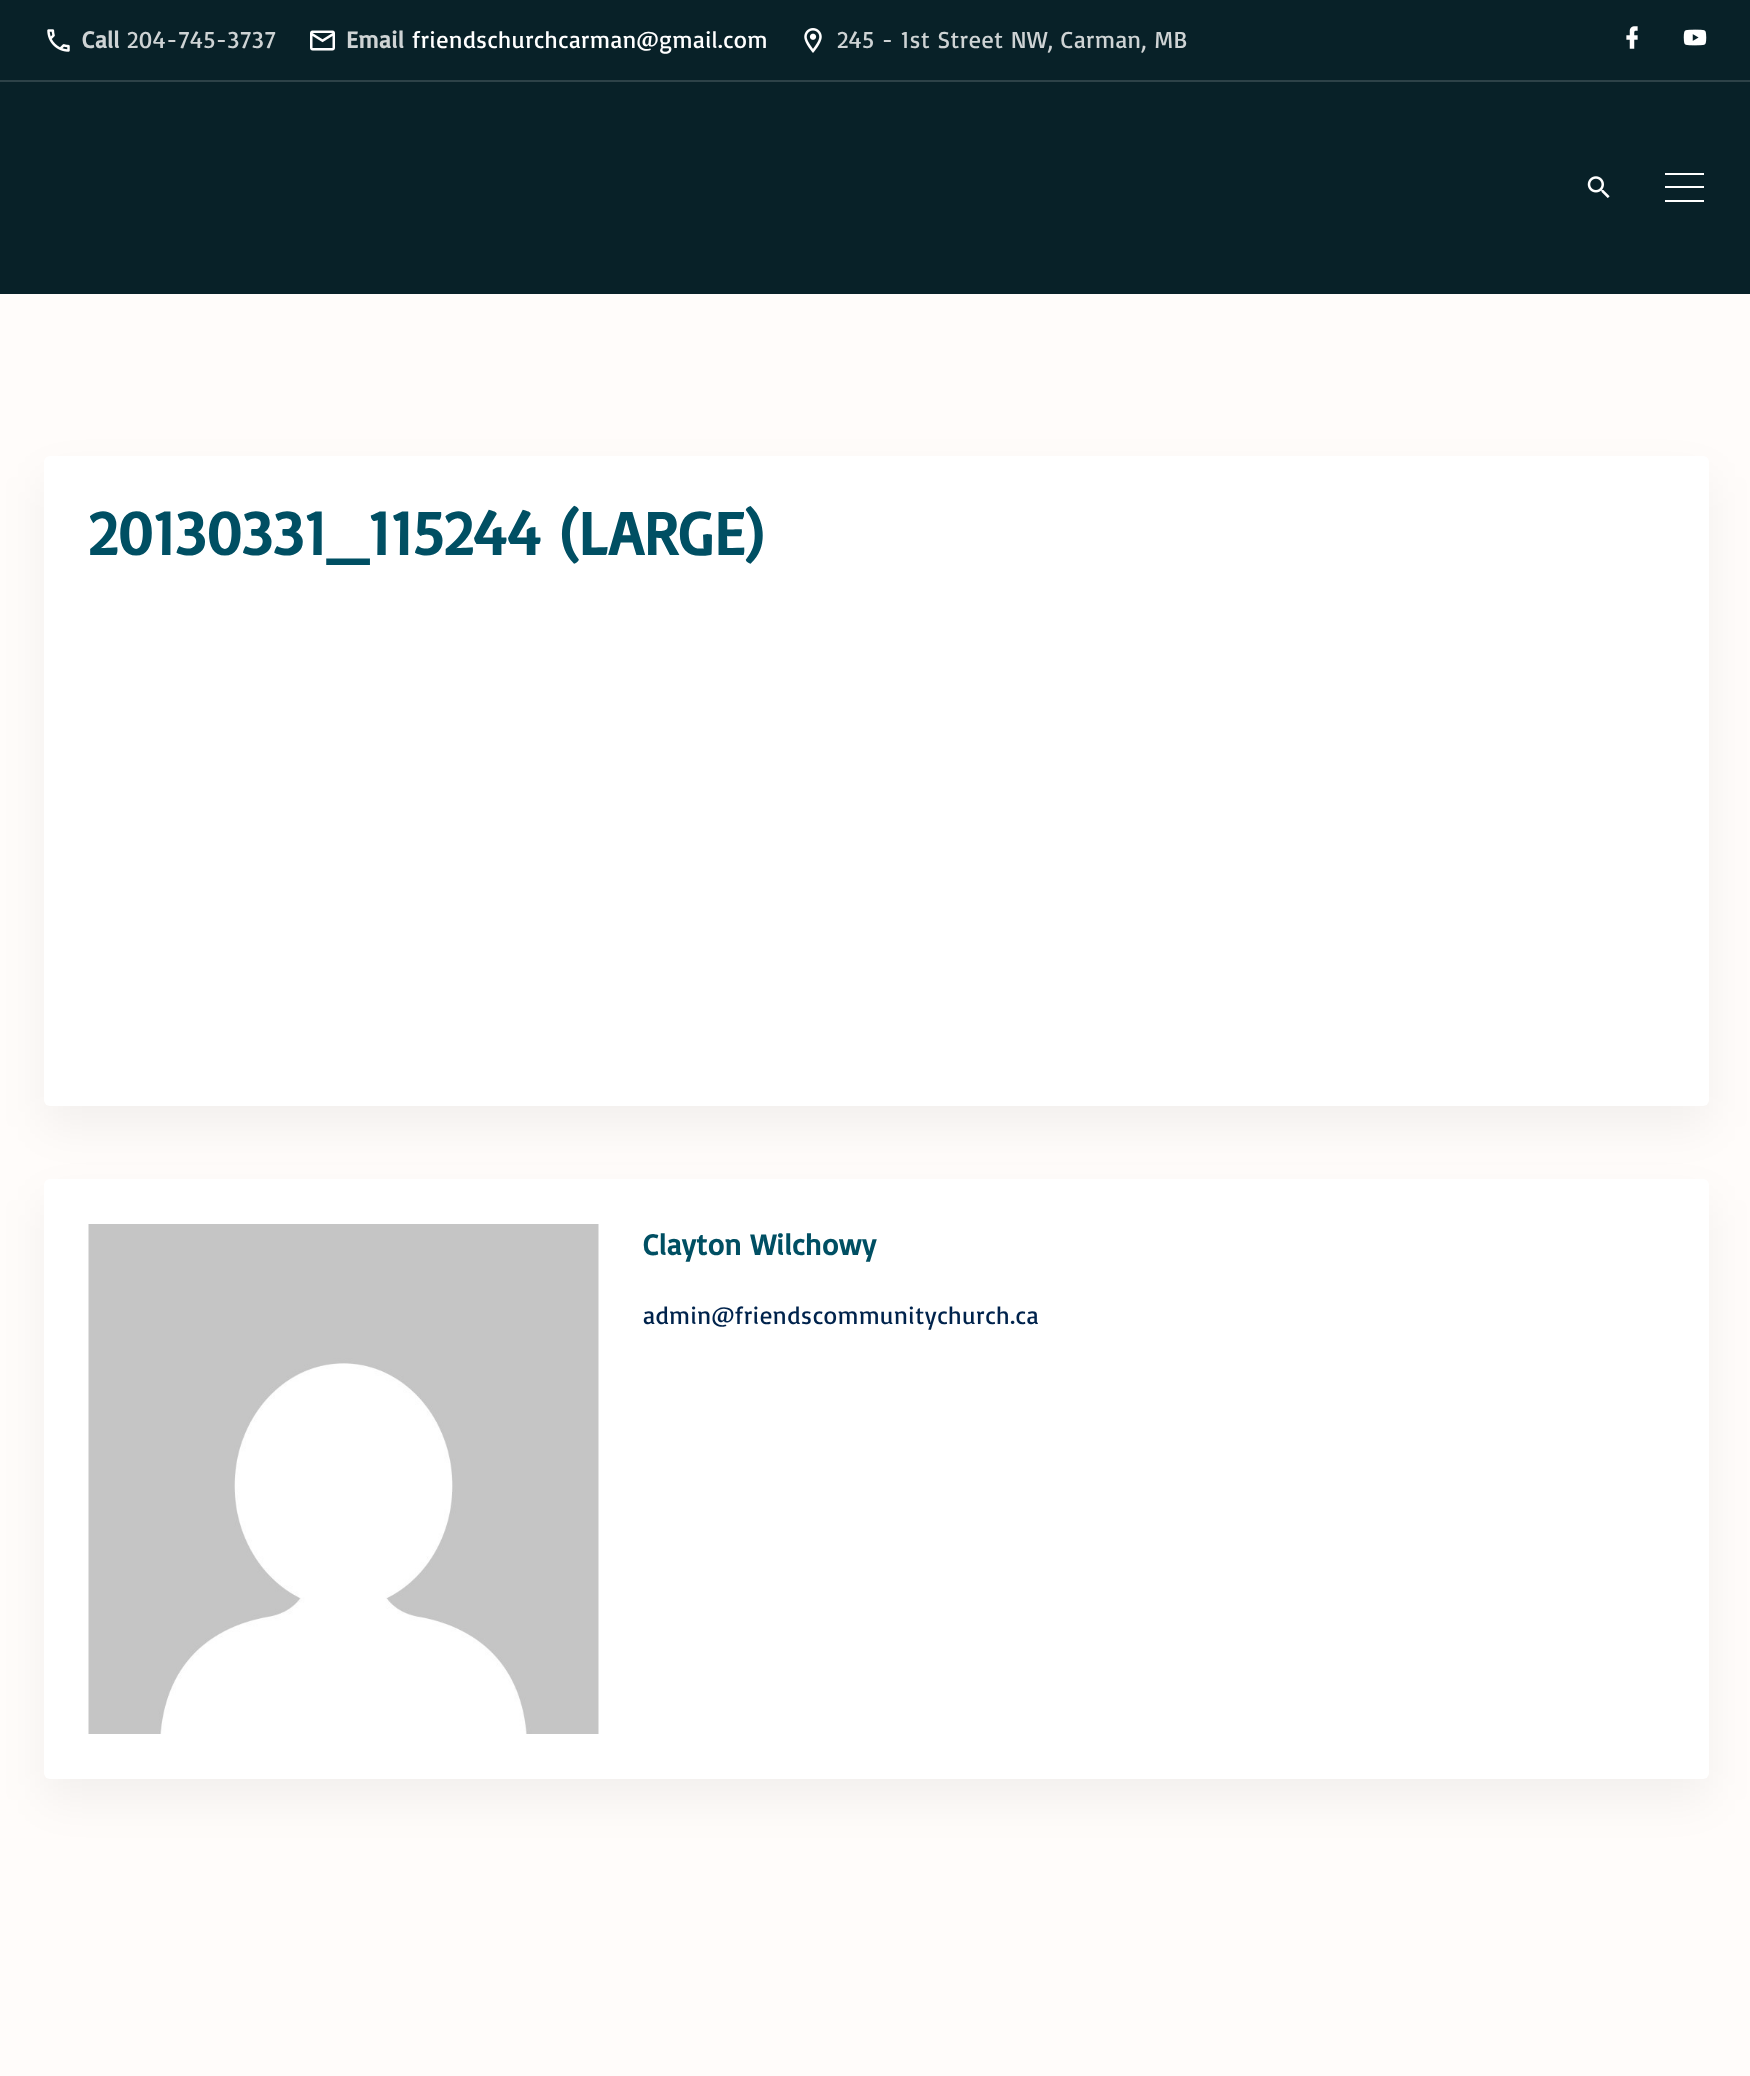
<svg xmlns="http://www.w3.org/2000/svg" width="1750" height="2076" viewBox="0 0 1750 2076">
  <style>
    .t1 { font: bold 24px Basic; letter-spacing: 0.55px; fill: #ced3d4; }
    .t2 { font: 24px Basic; letter-spacing: 0.55px; fill: #ced3d4; }
    .t3 { font: 24px Basic; letter-spacing: 0.55px; fill: #fff; }
    .t4 { font: bold 62.1px Basic; letter-spacing: 0.55px; fill: #004f63; }
    .t5 { font: bold 29.75px Basic; letter-spacing: 0.55px; fill: #004f63; }
    .t6 { font: 24.8px Basic; letter-spacing: 0.55px; fill: #00234c; }
  </style>
  <rect width="100%" height="100%" fill="#fffcfa"/>
  <rect x="0" y="0" width="1750" height="294" fill="#082128"/>
  <image x="47" y="29" width="23" height="23" href="images/1.png"/>
  <text x="82" y="48" class="t1">Call</text>
  <text x="127" y="48" class="t2">204-745-3737</text>
  <image x="310" y="30" width="25" height="21" href="images/2.png"/>
  <text x="346" y="48" class="t1">Email</text>
  <text x="412" y="48" class="t3">friendschurchcarman@gmail.com</text>
  <image x="804" y="28" width="18" height="25" href="images/3.png"/>
  <text x="837" y="48" class="t2">245 - 1st Street NW, Carman, MB</text>
  <image x="1626" y="26" width="12" height="23" href="images/4.png"/>
  <image x="1683" y="29" width="24" height="17" href="images/5.png"/>
  <rect x="0" y="80" width="1750" height="2" fill="#2d4248"/>
  <image x="1587" y="176" width="23" height="22" href="images/6.png"/>
  <rect x="1665" y="186" width="39" height="2" fill="#fff"/>
  <rect x="1665" y="173" width="39" height="2" fill="#fff"/>
  <rect x="1665" y="200" width="39" height="2" fill="#fff"/>
  <rect x="44" y="477" width="1665" height="650" rx="6" fill="#0000000d" filter="blur(22.5px)"/>
  <rect x="44" y="456" width="1665" height="650" rx="6" fill="#fff"/>
  <text x="88" y="555" class="t4">20130331_115244 (LARGE)</text>
  <rect x="44" y="1200" width="1665" height="600" rx="6" fill="#0000000d" filter="blur(22.5px)"/>
  <rect x="44" y="1179" width="1665" height="600" rx="6" fill="#fff"/>
  <image x="88" y="1224" width="511" height="510" href="images/7.png"/>
  <text x="643" y="1255" class="t5">Clayton Wilchowy</text>
  <text x="643" y="1324" class="t6">admin@friendscommunitychurch.ca</text>
</svg>
